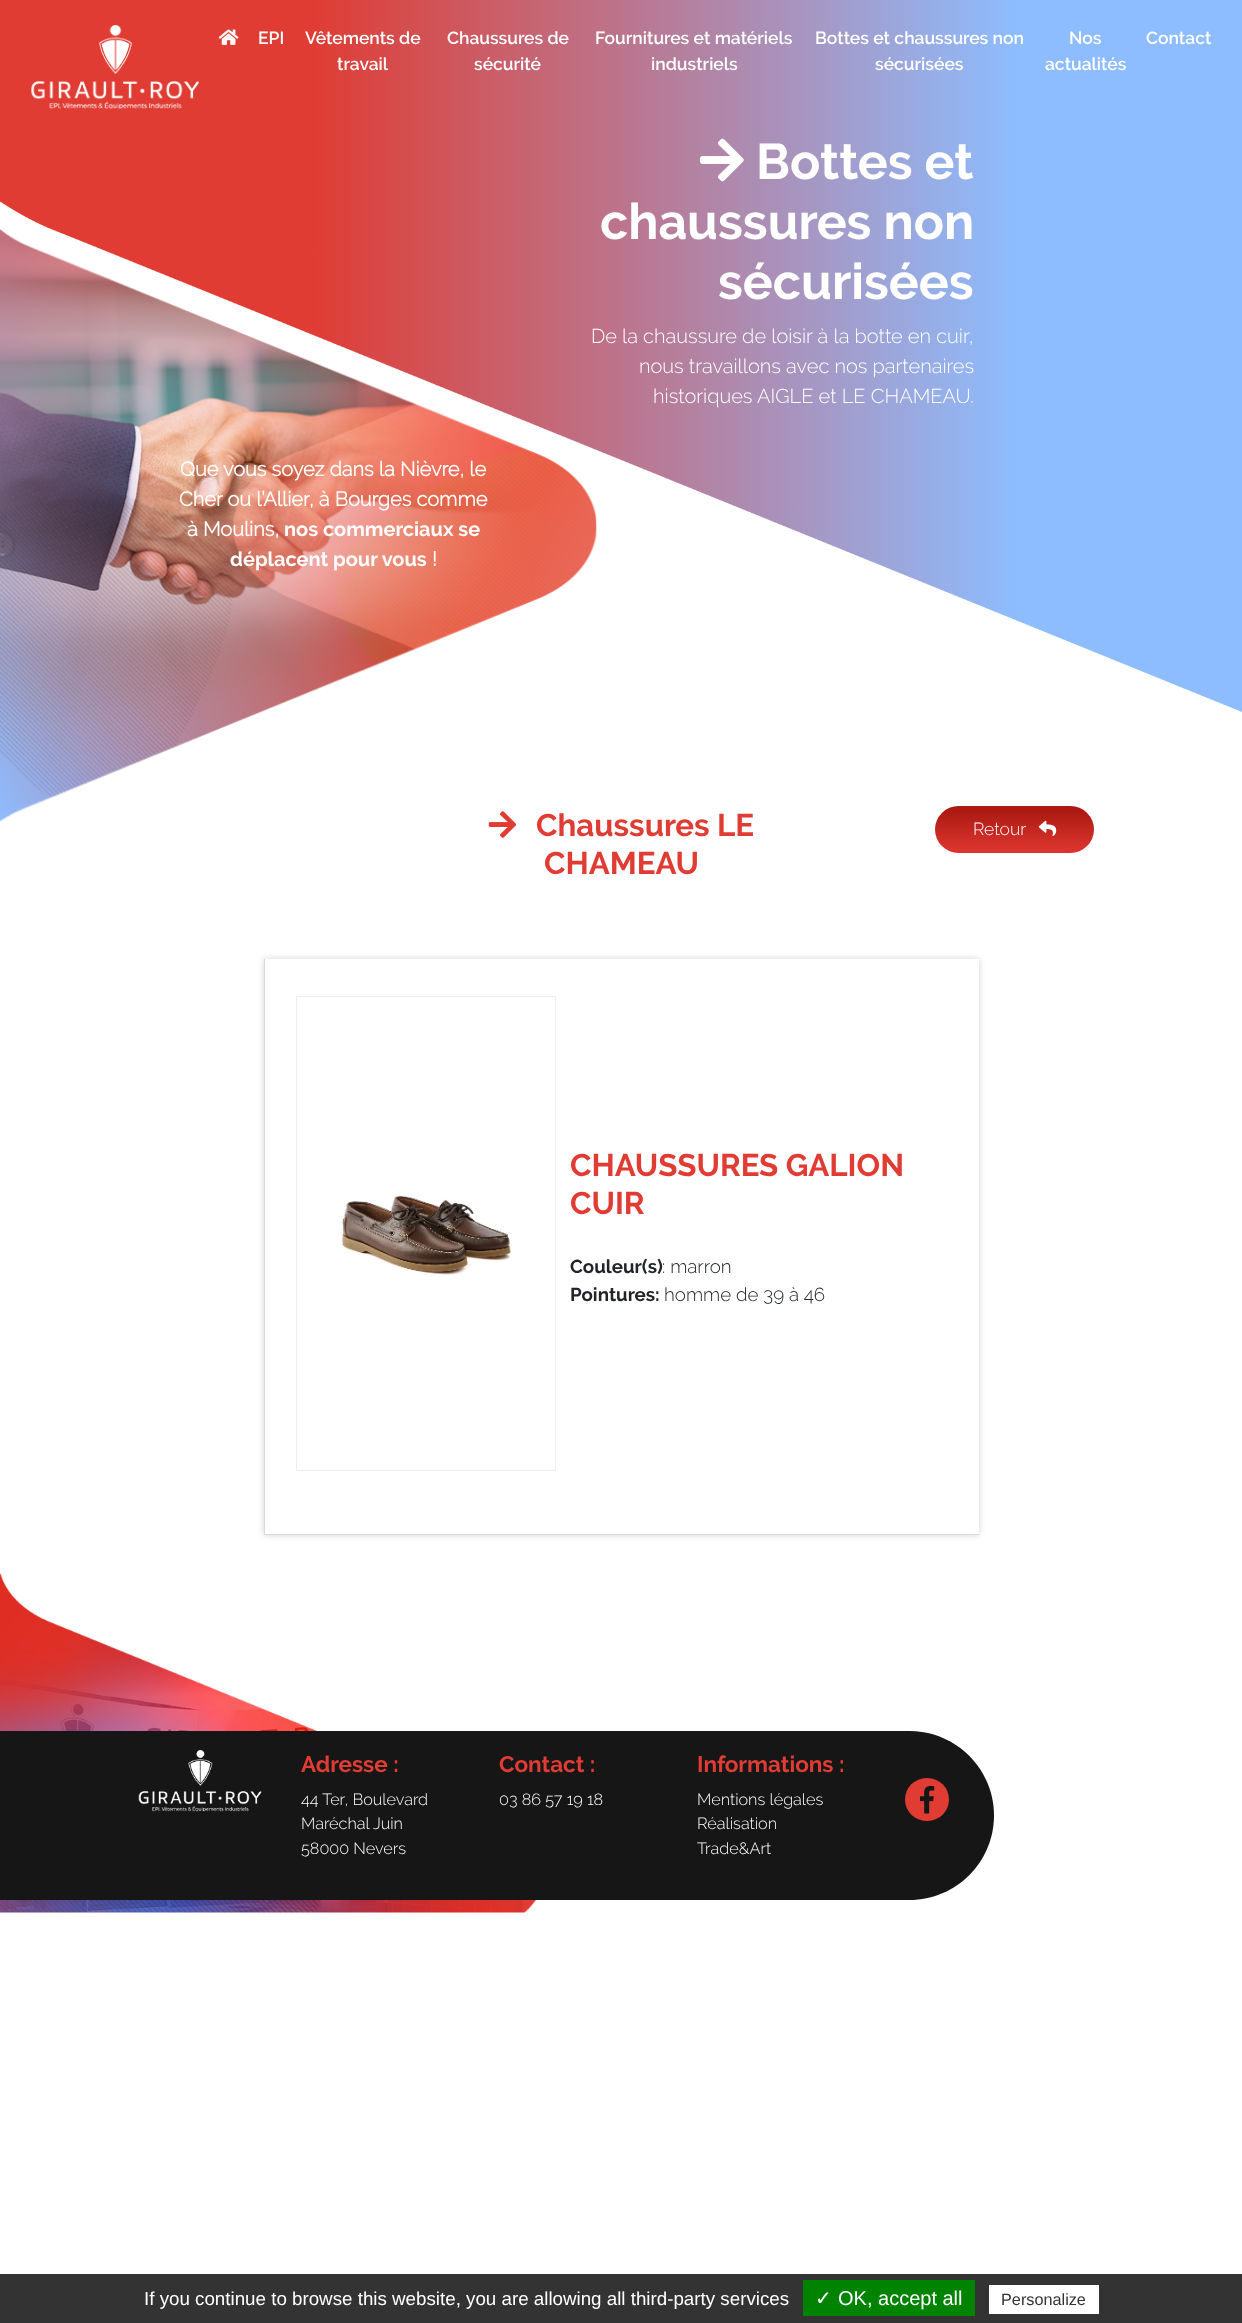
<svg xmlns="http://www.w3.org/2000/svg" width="1242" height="2323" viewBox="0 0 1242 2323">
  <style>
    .t1 { font: 600 17.5px Raleway; fill: #fff; }
    .t2 { font: bold 50px 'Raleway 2'; fill: #fff; }
    .t3 { font: 300 20px Raleway; fill: #fff; }
    .t4 { font: bold 20px Raleway; fill: #fff; }
    .t5 { font: bold 20px 'Raleway 2'; fill: #fff; }
    .t6 { font: bold 31.25px 'Raleway 2'; fill: #e03c33; }
    .t7 { font: 300 17.5px Raleway; fill: #fff; }
    .t8 { font: bold 18.75px 'Raleway 2'; fill: #212529; }
    .t9 { font: 300 18.75px Raleway; fill: #212529; }
    .t10 { font: bold 22.5px 'Raleway 2'; fill: #e03c33; }
    .t11 { font: 300 16.25px Raleway; fill: #fff; }
    .t12 { font: 18.75px Liberation Sans; fill: #fff; }
    .t13 { font: 20px DejaVu Sans; fill: #fff; }
    .t14 { font: 20px Liberation Sans; fill: #fff; }
    .t15 { font: 16.25px Liberation Sans; fill: #333; }
  </style>
  <defs>
    <linearGradient id="g1" gradientUnits="userSpaceOnUse" x1="0" y1="450" x2="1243" y2="450"><stop offset="0.25" stop-color="#e03c33"/><stop offset="0.82" stop-color="#8dbdff"/></linearGradient>
    <linearGradient id="g2" gradientUnits="userSpaceOnUse" x1="1014" y1="806" x2="1014" y2="853"><stop offset="0.11" stop-color="#ac1a12"/><stop offset="0.91" stop-color="#db342e"/></linearGradient>
  </defs>
  <rect width="100%" height="100%" fill="#fff"/>
  <rect x="0" y="0" width="1242" height="712" fill="url(#g1)"/>
  <image x="31" y="25" width="168" height="84" href="images/1.png"/>
  <image x="218" y="29" width="21" height="16" href="images/2.png"/>
  <text x="258" y="44" class="t1">EPI</text>
  <text x="305" y="44" class="t1">Vêtements de</text>
  <text x="337" y="70" class="t1">travail</text>
  <text x="447" y="44" class="t1">Chaussures de</text>
  <text x="474" y="70" class="t1">sécurité</text>
  <text x="595" y="44" class="t1">Fournitures et matériels</text>
  <text x="651" y="70" class="t1">industriels</text>
  <text x="815" y="44" class="t1">Bottes et chaussures non</text>
  <text x="875" y="70" class="t1">sécurisées</text>
  <text x="1069" y="44" class="t1">Nos</text>
  <text x="1045" y="70" class="t1">actualités</text>
  <text x="1146" y="44" class="t1">Contact</text>
  <image x="700" y="138" width="44" height="44" href="images/3.png"/>
  <text x="756" y="179" class="t2">Bottes et</text>
  <image x="0" y="201" width="1242" height="574" href="images/4.png"/>
  <text x="600" y="239" class="t2">chaussures non</text>
  <text x="718" y="299" class="t2">sécurisées</text>
  <image x="0" y="228" width="597" height="594" href="images/5.png"/>
  <text x="591" y="343" class="t3">De la chaussure de loisir à la botte en cuir,</text>
  <text x="639" y="373" class="t3">nous travaillons avec nos partenaires</text>
  <text x="653" y="403" class="t3">historiques AIGLE et LE CHAMEAU.</text>
  <text x="180" y="476" class="t4">Que vous soyez dans la Nièvre, le</text>
  <text x="179" y="506" class="t4">Cher ou l’Allier, à Bourges comme</text>
  <text x="187" y="536" class="t4">à Moulins,</text>
  <text x="284" y="536" class="t5">nos commerciaux se</text>
  <text x="230" y="566" class="t5">déplacent pour vous</text>
  <text x="432" y="566" class="t4">!</text>
  <image x="488" y="811" width="29" height="27" href="images/6.png"/>
  <text x="536" y="836" class="t6">Chaussures LE</text>
  <text x="544" y="874" class="t6">CHAMEAU</text>
  <rect x="935" y="806" width="159" height="47" rx="23.5" fill="url(#g2)"/>
  <text x="973" y="835" class="t7">Retour</text>
  <image x="1038" y="820" width="19" height="16" href="images/7.png"/>
  <rect x="264" y="959" width="715" height="576" fill="#17171733" filter="blur(3px)"/>
  <rect x="265" y="959" width="714" height="575" fill="#fff"/>
  <rect x="264" y="1534" width="715" height="1" fill="#dadada"/>
  <rect x="264" y="959" width="1" height="576" fill="#dadada"/>
  <rect x="296.5" y="996.5" width="259" height="474" fill="none" stroke="#eee"/>
  <image x="341" y="1194" width="171" height="81" href="images/8.png"/>
  <text x="570" y="1176" class="t6">CHAUSSURES GALION</text>
  <text x="570" y="1214" class="t6">CUIR</text>
  <text x="570" y="1273" class="t8">Couleur(s)</text>
  <text x="662" y="1273" class="t9">: marron</text>
  <text x="570" y="1301" class="t8">Pointures:</text>
  <text x="664" y="1301" class="t9">homme de 39 à 46</text>
  <image x="0" y="1573" width="536" height="340" href="images/9.png"/>
  <path d="M0 1731H909.5C956 1731 994 1769 994 1815.5C994 1862 956 1900 909.5 1900H0Z" fill="#161616"/>
  <image x="138" y="1750" width="124" height="62" href="images/10.png"/>
  <text x="301" y="1772" class="t10">Adresse :</text>
  <text x="301" y="1805" class="t11">44 Ter, Boulevard</text>
  <text x="301" y="1829" class="t11">Maréchal Juin</text>
  <text x="301" y="1854" class="t11">58000 Nevers</text>
  <text x="499" y="1772" class="t10">Contact :</text>
  <text x="499" y="1805" class="t11">03 86 57 19 18</text>
  <text x="697" y="1772" class="t10">Informations :</text>
  <text x="697" y="1805" class="t11">Mentions légales</text>
  <text x="697" y="1829" class="t11">Réalisation</text>
  <text x="697" y="1854" class="t11">Trade&amp;Art</text>
  <rect x="905" y="1778" width="44" height="43" rx="21.5" fill="#e03c33"/>
  <image x="920" y="1785" width="15" height="29" href="images/11.png"/>
  <rect x="0" y="2274" width="1242" height="49" fill="#333"/>
  <text x="144" y="2305" class="t12">If you continue to browse this website, you are allowing all third-party services</text>
  <rect x="803" y="2280" width="172" height="36" fill="#008300"/>
  <text x="815" y="2305" class="t13">✓</text>
  <text x="838" y="2305" class="t14">OK, accept all</text>
  <rect x="989" y="2285" width="110" height="29" fill="#fff"/>
  <text x="1001" y="2305" class="t15">Personalize</text>
</svg>
